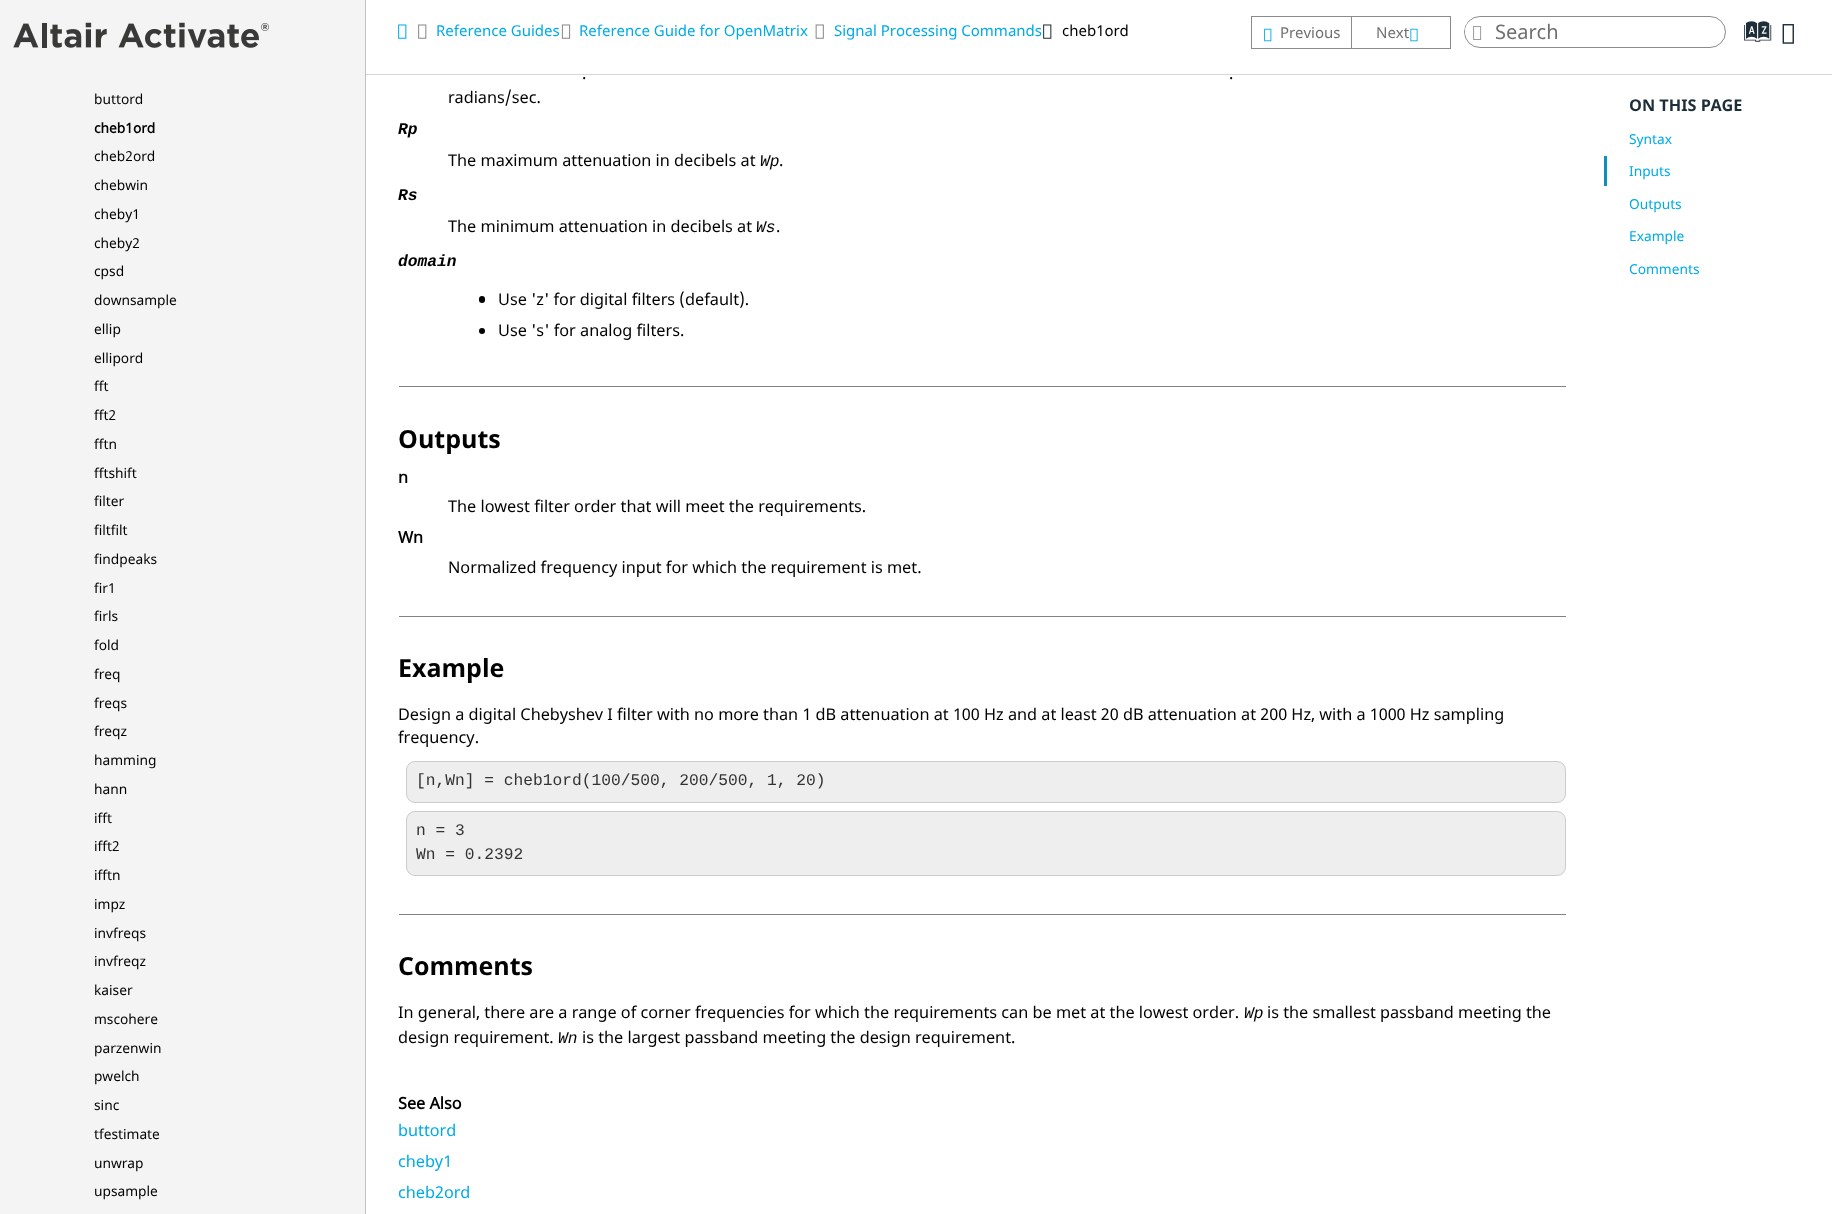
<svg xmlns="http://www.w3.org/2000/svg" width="1832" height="1214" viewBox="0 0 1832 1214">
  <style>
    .t1 { font: 13.75px Noto Sans; fill: #000; }
    .t2 { font: bold 13.75px 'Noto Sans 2'; fill: #000; }
    .t3 { font: 15px Noto Sans; fill: #00aae6; }
    .t4 { font: 15px Noto Sans; fill: #000; }
    .t5 { font: 15px Noto Sans; fill: #707070; }
    .t6 { font: 20px Noto Sans; fill: #707070; }
    .t7 { font: 29px Oxygen; fill: #1d2e38; }
    .t8 { font: 16.25px Noto Sans; fill: #000; }
    .t9 { font: italic bold 16.25px Liberation Mono; fill: #000; }
    .t10 { font: italic 16.25px Liberation Mono; fill: #000; }
    .t11 { font: bold 25px Noto Sans; fill: #000; }
    .t12 { font: bold 16.25px 'Noto Sans 2'; fill: #000; }
    .t13 { font: 16.25px Liberation Mono; fill: #333; }
    .t14 { font: 16.25px Noto Sans; fill: #00aae6; }
    .t15 { font: bold 16.25px Noto Sans; fill: #1d2e38; }
    .t16 { font: 13.75px Noto Sans; fill: #00aae6; }
  </style>
  <rect width="100%" height="100%" fill="#fff"/>
  <rect x="0" y="0" width="365" height="1214" fill="#f4f4f4"/>
  <rect x="365" y="0" width="1" height="1214" fill="#c0c0c0"/>
  <image x="13" y="22" width="256" height="26" href="images/1.png"/>
  <text x="94" y="104" class="t1">buttord</text>
  <text x="94" y="133" class="t2">cheb1ord</text>
  <text x="94" y="161" class="t1">cheb2ord</text>
  <text x="94" y="190" class="t1">chebwin</text>
  <text x="94" y="219" class="t1">cheby1</text>
  <text x="94" y="248" class="t1">cheby2</text>
  <text x="94" y="276" class="t1">cpsd</text>
  <text x="94" y="305" class="t1">downsample</text>
  <text x="94" y="334" class="t1">ellip</text>
  <text x="94" y="363" class="t1">ellipord</text>
  <text x="94" y="391" class="t1">fft</text>
  <text x="94" y="420" class="t1">fft2</text>
  <text x="94" y="449" class="t1">fftn</text>
  <text x="94" y="478" class="t1">fftshift</text>
  <text x="94" y="506" class="t1">filter</text>
  <text x="94" y="535" class="t1">filtfilt</text>
  <text x="94" y="564" class="t1">findpeaks</text>
  <text x="94" y="593" class="t1">fir1</text>
  <text x="94" y="621" class="t1">firls</text>
  <text x="94" y="650" class="t1">fold</text>
  <text x="94" y="679" class="t1">freq</text>
  <text x="94" y="708" class="t1">freqs</text>
  <text x="94" y="736" class="t1">freqz</text>
  <text x="94" y="765" class="t1">hamming</text>
  <text x="94" y="794" class="t1">hann</text>
  <text x="94" y="823" class="t1">ifft</text>
  <text x="94" y="851" class="t1">ifft2</text>
  <text x="94" y="880" class="t1">ifftn</text>
  <text x="94" y="909" class="t1">impz</text>
  <text x="94" y="938" class="t1">invfreqs</text>
  <text x="94" y="966" class="t1">invfreqz</text>
  <text x="94" y="995" class="t1">kaiser</text>
  <text x="94" y="1024" class="t1">mscohere</text>
  <text x="94" y="1053" class="t1">parzenwin</text>
  <text x="94" y="1081" class="t1">pwelch</text>
  <text x="94" y="1110" class="t1">sinc</text>
  <text x="94" y="1139" class="t1">tfestimate</text>
  <text x="94" y="1168" class="t1">unwrap</text>
  <text x="94" y="1196" class="t1">upsample</text>
  <rect x="366" y="74" width="1466" height="1" fill="#d8d8d8"/>
  <image x="398" y="24" width="9" height="15" href="images/2.png"/>
  <image x="418" y="24" width="9" height="15" href="images/3.png"/>
  <text x="436" y="36" class="t3">Reference Guides</text>
  <image x="561" y="24" width="10" height="15" href="images/4.png"/>
  <text x="579" y="36" class="t3">Reference Guide for OpenMatrix</text>
  <image x="815" y="24" width="9" height="15" href="images/5.png"/>
  <text x="834" y="36" class="t3">Signal Processing Commands</text>
  <image x="1043" y="24" width="9" height="15" href="images/6.png"/>
  <text x="1062" y="36" class="t4">cheb1ord</text>
  <rect x="1251" y="16" width="100" height="1" fill="#8b8b8b"/>
  <rect x="1251" y="48" width="100" height="1" fill="#8b8b8b"/>
  <rect x="1251" y="16" width="1" height="33" fill="#8b8b8b"/>
  <image x="1264" y="28" width="8" height="14" href="images/7.png"/>
  <text x="1280" y="38" class="t5">Previous</text>
  <rect x="1351.5" y="16.5" width="99" height="32" fill="none" stroke="#8b8b8b"/>
  <text x="1376" y="38" class="t5">Next</text>
  <image x="1410" y="28" width="8" height="14" href="images/8.png"/>
  <rect x="1464.5" y="16.5" width="261" height="31" rx="15.5" fill="none" stroke="#8b8b8b"/>
  <rect x="1465" y="19" width="25" height="24" rx="12" fill="#fff"/>
  <image x="1473" y="26" width="9" height="14" href="images/9.png"/>
  <text x="1495" y="39" class="t6">Search</text>
  <text x="1747" y="45" class="t7">a</text>
  <image x="1782" y="24" width="12" height="20" href="images/10.png"/>
  <text x="582" y="79" class="t8">.</text>
  <text x="1229" y="79" class="t8">.</text>
  <text x="448" y="103" class="t8">radians/sec.</text>
  <text x="398" y="134" class="t9">Rp</text>
  <text x="448" y="166" class="t8">The maximum attenuation in decibels at</text>
  <text x="760" y="166" class="t10">Wp</text>
  <text x="779" y="166" class="t8">.</text>
  <text x="398" y="200" class="t9">Rs</text>
  <text x="448" y="232" class="t8">The minimum attenuation in decibels at</text>
  <text x="756" y="232" class="t10">Ws</text>
  <text x="776" y="232" class="t8">.</text>
  <text x="398" y="266" class="t9">domain</text>
  <rect x="479" y="296" width="6" height="7" rx="3" fill="#000"/>
  <text x="498" y="305" class="t8">Use 'z' for digital filters (default).</text>
  <circle cx="482" cy="331" r="3" fill="#000"/>
  <text x="498" y="336" class="t8">Use 's' for analog filters.</text>
  <rect x="399" y="386" width="1167" height="1" fill="#828282"/>
  <text x="398" y="448" class="t11">Outputs</text>
  <text x="398" y="483" class="t12">n</text>
  <text x="448" y="512" class="t8">The lowest filter order that will meet the requirements.</text>
  <text x="398" y="543" class="t12">Wn</text>
  <text x="448" y="573" class="t8">Normalized frequency input for which the requirement is met.</text>
  <rect x="399" y="616" width="1167" height="1" fill="#828282"/>
  <text x="398" y="677" class="t11">Example</text>
  <text x="398" y="720" class="t8">Design a digital Chebyshev I filter with no more than 1 dB attenuation at 100 Hz and at least 20 dB attenuation at 200 Hz, with a 1000 Hz sampling</text>
  <text x="398" y="743" class="t8">frequency.</text>
  <rect x="406.5" y="761.5" width="1159" height="41" rx="8.5" fill="#eee" stroke="#ccc"/>
  <text x="416" y="785" class="t13">[n,Wn] = cheb1ord(100/500, 200/500, 1, 20)</text>
  <rect x="406.5" y="811.5" width="1159" height="64" rx="8.5" fill="#eee" stroke="#ccc"/>
  <text x="416" y="835" class="t13">n = 3</text>
  <text x="416" y="859" class="t13">Wn = 0.2392</text>
  <rect x="399" y="914" width="1167" height="1" fill="#828282"/>
  <text x="398" y="975" class="t11">Comments</text>
  <text x="398" y="1018" class="t8">In general, there are a range of corner frequencies for which the requirements can be met at the lowest order.</text>
  <text x="1244" y="1018" class="t10">Wp</text>
  <text x="1267" y="1018" class="t8">is the smallest passband meeting the</text>
  <text x="398" y="1043" class="t8">design requirement.</text>
  <text x="558" y="1043" class="t10">Wn</text>
  <text x="582" y="1043" class="t8">is the largest passband meeting the design requirement.</text>
  <text x="398" y="1109" class="t12">See Also</text>
  <text x="398" y="1136" class="t14">buttord</text>
  <text x="398" y="1167" class="t14">cheby1</text>
  <text x="398" y="1198" class="t14">cheb2ord</text>
  <text x="1629" y="111" class="t15">ON THIS PAGE</text>
  <text x="1629" y="144" class="t16">Syntax</text>
  <rect x="1604" y="156" width="3" height="30" fill="#0e8fbc"/>
  <text x="1629" y="176" class="t16">Inputs</text>
  <text x="1629" y="209" class="t16">Outputs</text>
  <text x="1629" y="241" class="t16">Example</text>
  <text x="1629" y="274" class="t16">Comments</text>
</svg>
